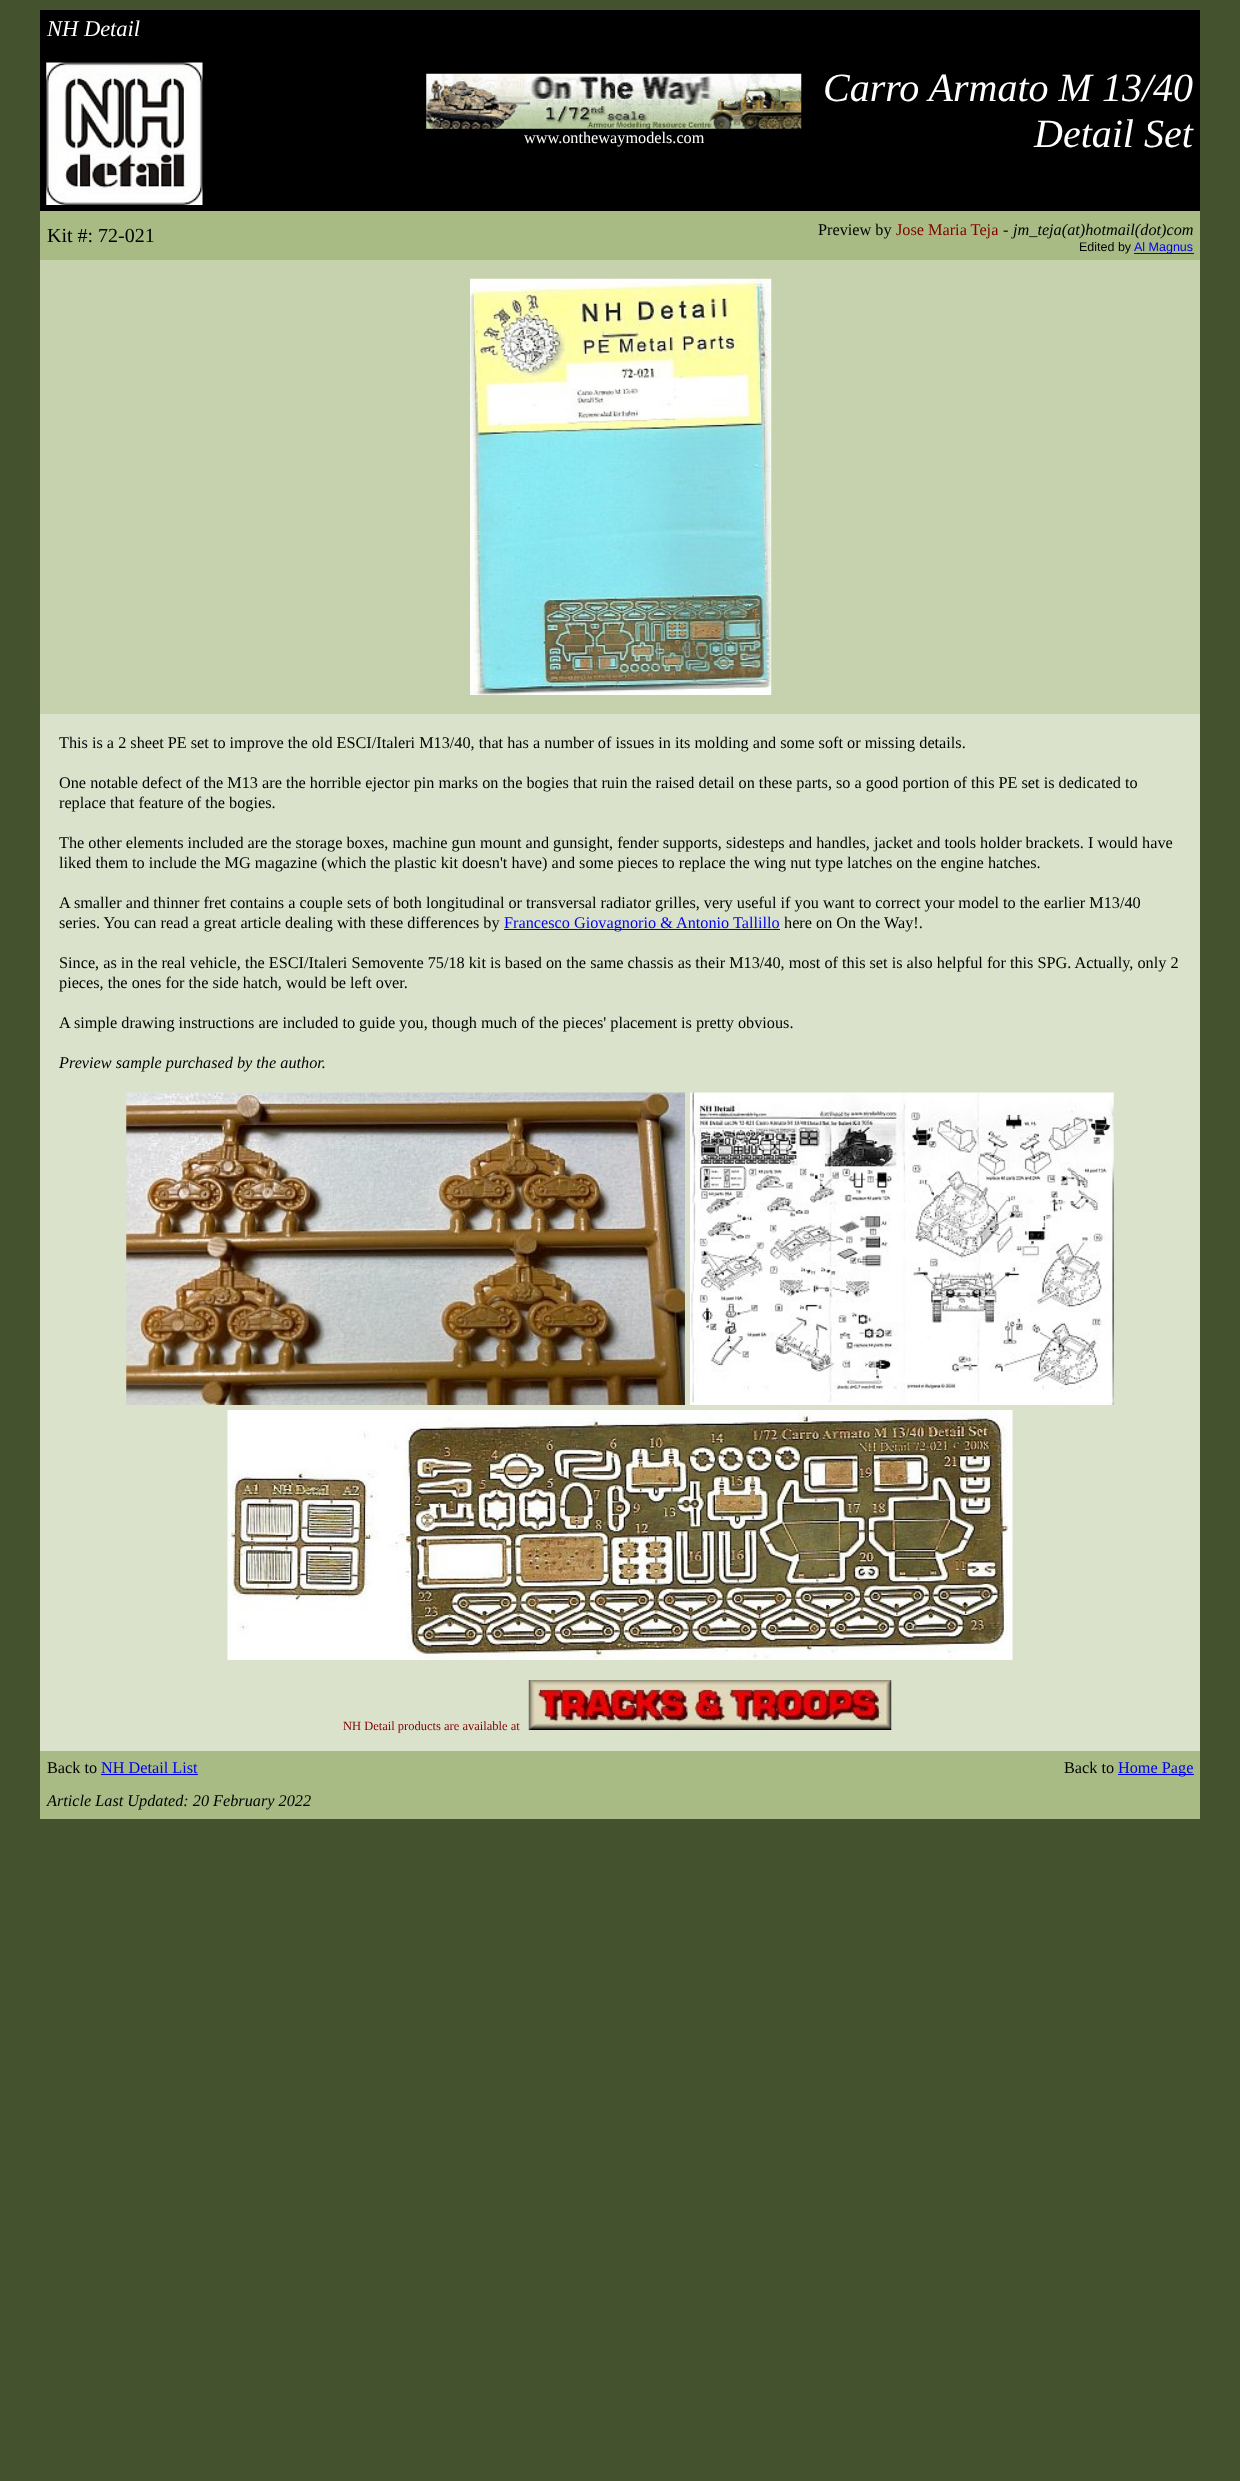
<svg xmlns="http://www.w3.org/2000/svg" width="1240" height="2481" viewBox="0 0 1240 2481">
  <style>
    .t1 { font: italic 22.5px Liberation Serif; fill: #fff; }
    .t2 { font: 16.25px Liberation Serif; fill: #fff; }
    .t3 { font: italic 40px Liberation Serif; fill: #fff; }
    .t4 { font: 20px Liberation Serif; fill: #000; }
    .t5 { font: 16.25px Liberation Serif; fill: #000; }
    .t6 { font: 16.25px Liberation Serif; fill: #800000; }
    .t7 { font: italic 16.25px Liberation Serif; fill: #000; }
    .t8 { font: 12.5px Liberation Sans; fill: #000; }
    .t9 { font: 12.5px Liberation Sans; fill: #00e; }
    .t10 { font: 16.25px Liberation Serif; fill: #00e; }
    .t11 { font: 12.5px Liberation Serif; fill: #800000; }
  </style>
  <rect width="100%" height="100%" fill="#45522e"/>
  <rect x="40" y="10" width="1160" height="201" fill="#000"/>
  <text x="47" y="36" class="t1">NH Detail</text>
  <image x="46" y="62" width="157" height="143" href="images/1.png"/>
  <image x="426" y="73" width="376" height="56" href="images/2.png"/>
  <text x="524" y="143" class="t2">www.onthewaymodels.com</text>
  <text x="823" y="101" class="t3">Carro Armato M 13/40</text>
  <text x="1034" y="147" class="t3">Detail Set</text>
  <rect x="40" y="211" width="1160" height="49" fill="#a8bb84"/>
  <text x="47" y="242" class="t4">Kit #: 72-021</text>
  <text x="818" y="235" class="t5">Preview by</text>
  <text x="896" y="235" class="t6">Jose Maria Teja</text>
  <text x="1003" y="235" class="t5">-</text>
  <text x="1013" y="235" class="t7">jm_teja(at)hotmail(dot)com</text>
  <text x="1079" y="251" class="t8">Edited by</text>
  <rect x="1134" y="253" width="60" height="1" fill="#00e"/>
  <text x="1134" y="251" class="t9">Al Magnus</text>
  <rect x="40" y="260" width="1160" height="454" fill="#c6d2ae"/>
  <image x="470" y="278" width="302" height="417" href="images/3.png"/>
  <rect x="40" y="714" width="1160" height="1037" fill="#dbe2cb"/>
  <text x="59" y="748" class="t5">This is a 2 sheet PE set to improve the old ESCI/Italeri M13/40, that has a number of issues in its molding and some soft or missing details.</text>
  <text x="59" y="788" class="t5">One notable defect of the M13 are the horrible ejector pin marks on the bogies that ruin the raised detail on these parts, so a good portion of this PE set is dedicated to</text>
  <text x="59" y="808" class="t5">replace that feature of the bogies.</text>
  <text x="59" y="848" class="t5">The other elements included are the storage boxes, machine gun mount and gunsight, fender supports, sidesteps and handles, jacket and tools holder brackets. I would have</text>
  <text x="59" y="868" class="t5">liked them to include the MG magazine (which the plastic kit doesn't have) and some pieces to replace the wing nut type latches on the engine hatches.</text>
  <text x="59" y="908" class="t5">A smaller and thinner fret contains a couple sets of both longitudinal or transversal radiator grilles, very useful if you want to correct your model to the earlier M13/40</text>
  <text x="59" y="928" class="t5">series. You can read a great article dealing with these differences by</text>
  <rect x="504" y="929" width="276" height="1" fill="#00e"/>
  <text x="504" y="928" class="t10">Francesco Giovagnorio &amp; Antonio Tallillo</text>
  <text x="784" y="928" class="t5">here on On the Way!.</text>
  <text x="59" y="968" class="t5">Since, as in the real vehicle, the ESCI/Italeri Semovente 75/18 kit is based on the same chassis as their M13/40, most of this set is also helpful for this SPG. Actually, only 2</text>
  <text x="59" y="988" class="t5">pieces, the ones for the side hatch, would be left over.</text>
  <text x="59" y="1028" class="t5">A simple drawing instructions are included to guide you, though much of the pieces' placement is pretty obvious.</text>
  <text x="59" y="1068" class="t7">Preview sample purchased by the author.</text>
  <image x="126" y="1092" width="559" height="313" href="images/4.png"/>
  <image x="690" y="1092" width="424" height="313" href="images/5.png"/>
  <image x="227" y="1410" width="786" height="250" href="images/6.png"/>
  <text x="343" y="1730" class="t11">NH Detail products are available at</text>
  <image x="528" y="1680" width="364" height="50" href="images/7.png"/>
  <rect x="40" y="1751" width="1160" height="33" fill="#a8bb84"/>
  <text x="47" y="1773" class="t5">Back to</text>
  <text x="101" y="1773" class="t10">NH Detail List</text>
  <rect x="101" y="1774" width="97" height="1" fill="#00e"/>
  <text x="1064" y="1773" class="t5">Back to</text>
  <rect x="1118" y="1774" width="76" height="1" fill="#00e"/>
  <text x="1118" y="1773" class="t10">Home Page</text>
  <rect x="40" y="1784" width="1160" height="35" fill="#a8bb84"/>
  <text x="47" y="1806" class="t7">Article Last Updated: 20 February 2022</text>
</svg>
